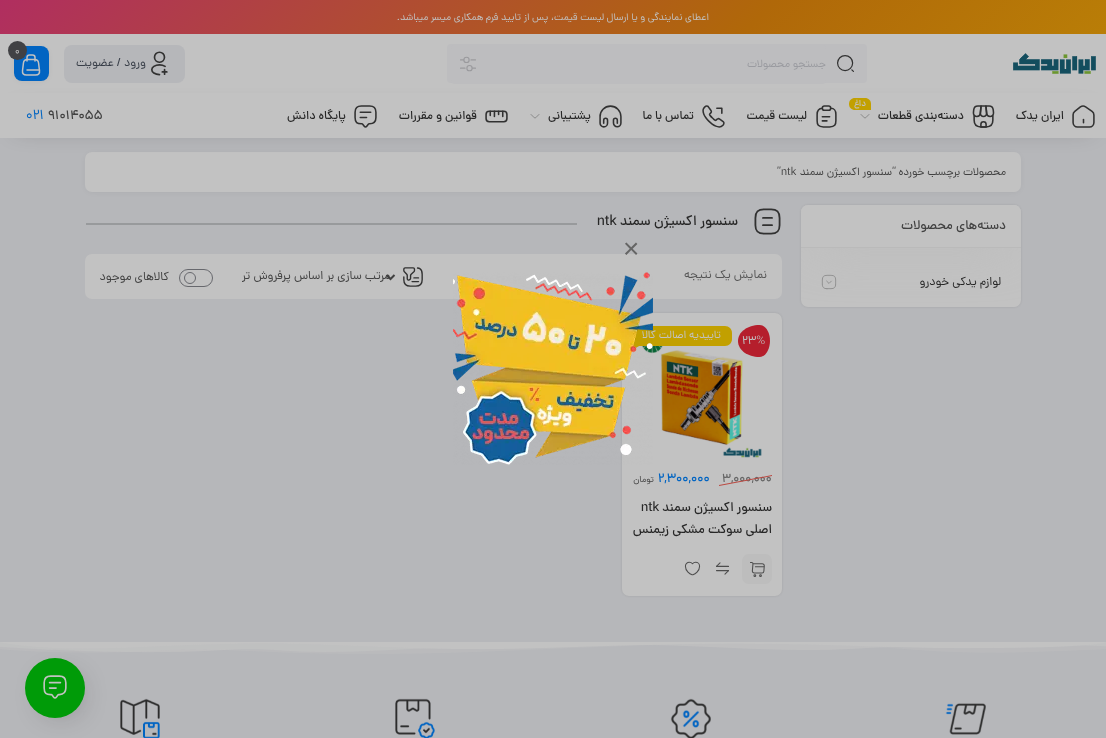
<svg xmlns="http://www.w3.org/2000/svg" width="1106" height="738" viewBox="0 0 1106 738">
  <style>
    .t1 { font: 10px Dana; direction: rtl; fill: #c2c2c2; }
    .t2 { font: 11px Dana; direction: rtl; fill: #9a9ba0; }
    .t3 { font: 10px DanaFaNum; fill: #c2c2c2; }
    .t4 { font: 12px DanaFaNum; direction: rtl; fill: #383e48; }
    .t5 { font: 500 12px Dana; direction: rtl; fill: #272727; }
    .t6 { font: 500 9px Dana; direction: rtl; fill: #c2c2c2; }
    .t7 { font: 500 13px DanaFaNum; fill: #414141; }
    .t8 { font: 14px DanaFaNum; fill: #0164c2; }
    .t9 { font: 11px Dana; direction: rtl; fill: #414141; }
    .t10 { font: 11px Dana; fill: #414141; }
    .t11 { font: 500 13px Dana; direction: rtl; fill: #414141; }
    .t12 { font: 12px DanaFaNum; direction: rtl; fill: #272727; }
    .t13 { font: 500 14px Dana; direction: rtl; fill: #272727; }
    .t14 { font: 500 14px Dana; fill: #272727; }
    .t15 { font: 12px DanaFaNum; direction: rtl; fill: #555; }
    .t16 { font: 12px DanaFaNum; direction: rtl; fill: #414141; }
    .t17 { font: 11px Dana; direction: rtl; fill: #c2c2c2; }
    .t18 { font: 12px DanaFaNum; fill: #c2c2c2; }
    .t19 { font: 500 12.5px DanaFaNum; letter-spacing: -0.1px; fill: #656565; }
    .t20 { font: 500 13px DanaFaNum; letter-spacing: -0.1px; fill: #0164c2; }
    .t21 { font: 9px DanaFaNum; letter-spacing: -0.1px; direction: rtl; fill: #414141; }
    .t22 { font: 500 13px Dana; direction: rtl; fill: #272727; }
    .t23 { font: 500 13px Dana; fill: #272727; }
    .t24 { font: 28px Liberation Sans; fill: #656565; }
  </style>
  <defs>
    <linearGradient id="g1" gradientUnits="userSpaceOnUse" x1="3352" y1="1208" x2="1072" y2="-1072"><stop offset="0" stop-color="#b4154e"/><stop offset="0.17" stop-color="#511ba2"/><stop offset="0.33" stop-color="#1b7ea2"/><stop offset="0.5" stop-color="#1ba282"/><stop offset="0.67" stop-color="#c29305"/><stop offset="0.83" stop-color="#b06809"/><stop offset="1" stop-color="#b02e60"/></linearGradient>
    <clipPath id="clip1"><rect x="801" y="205" width="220" height="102" rx="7"/></clipPath>
    <clipPath id="clip2"><rect x="242" y="267" width="148" height="20"/></clipPath>
  </defs>
  <rect width="100%" height="100%" fill="#b6b7ba"/>
  <rect x="0" y="0" width="1106" height="34" fill="url(#g1)"/>
  <text x="709" y="20" class="t1">اعطای نمایندگی و یا ارسال لیست قیمت، پس از تایید فرم همکاری میسر میباشد.</text>
  <rect x="0" y="34" width="1106" height="59" fill="#c2c2c2"/>
  <image x="1013" y="53" width="83" height="21" href="images/1.png"/>
  <rect x="17" y="50" width="29" height="29" rx="5" fill="#0000001a" filter="blur(3.5px)"/>
  <rect x="14" y="46" width="35" height="35" rx="8" fill="#0164c2"/>
  <rect x="64" y="45" width="121" height="38" rx="8" fill="#b6b7ba"/>
  <rect x="88" y="156" width="930" height="34" rx="4" fill="#0000001a" filter="blur(3.5px)"/>
  <rect x="85" y="152" width="936" height="40" rx="7" fill="#c2c2c2"/>
  <rect x="16" y="114" width="1074" height="13" fill="#0000004f" filter="blur(11.5px)"/>
  <rect x="447" y="44" width="420" height="39" rx="4" fill="#bdbdbf"/>
  <image x="837" y="55" width="17" height="17" href="images/2.png"/>
  <rect x="451" y="45" width="375" height="39" rx="4" fill="#bdbdbf"/>
  <text x="826" y="67" class="t2">جستجو محصولات</text>
  <image x="460" y="56" width="16" height="16" href="images/3.png"/>
  <image x="21" y="54" width="20" height="22" href="images/4.png"/>
  <circle cx="17.5" cy="50.5" r="9.5" fill="#414144"/>
  <text x="15" y="54" class="t3">0</text>
  <image x="151" y="51" width="17" height="25" href="images/5.png"/>
  <text x="146" y="66" class="t4">ورود / عضویت</text>
  <rect x="0" y="93" width="1106" height="45" fill="#c2c2c2"/>
  <image x="1072" y="105" width="23" height="23" href="images/6.png"/>
  <text x="1064" y="119" class="t5">ایران یدک</text>
  <path d="M855 98H865C868.5 98 871 100.5 871 104V110H855C851.5 110 849 107.5 849 104C849 100.5 851.5 98 855 98Z" fill="#c2a000"/>
  <text x="866" y="106" class="t6">داغ</text>
  <image x="972" y="105" width="23" height="23" href="images/7.png"/>
  <text x="964" y="119" class="t5">دسته‌بندی قطعات</text>
  <image x="860" y="114" width="10" height="5" href="images/8.png"/>
  <image x="816" y="105" width="21" height="23" href="images/9.png"/>
  <text x="807" y="119" class="t5">لیست قیمت</text>
  <image x="702" y="105" width="23" height="23" href="images/10.png"/>
  <text x="694" y="119" class="t5">تماس با ما</text>
  <image x="599" y="105" width="23" height="23" href="images/11.png"/>
  <text x="591" y="119" class="t5">پشتیبانی</text>
  <image x="530" y="114" width="10" height="5" href="images/8.png"/>
  <image x="485" y="110" width="23" height="13" href="images/12.png"/>
  <text x="477" y="119" class="t5">قوانین و مقررات</text>
  <image x="354" y="105" width="23" height="23" href="images/13.png"/>
  <text x="346" y="119" class="t5">پایگاه دانش</text>
  <text x="48" y="119" class="t7">91014055</text>
  <text x="26" y="119" class="t8">021</text>
  <text x="1006" y="175" class="t9">محصولات برچسب خورده</text>
  <text x="896" y="175" class="t9">“سنسور اکسیژن سمند</text>
  <text x="777" y="175" class="t10">”ntk</text>
  <rect x="801" y="205" width="220" height="102" rx="7" fill="#0000001a" filter="blur(1px)"/>
  <rect x="801" y="205" width="220" height="102" rx="7" fill="#c2c2c2"/>
  <image x="821" y="274" width="16" height="16" href="images/14.png"/>
  <image x="754" y="208" width="27" height="27" href="images/15.png"/>
  <rect x="85" y="254" width="697" height="45" rx="7" fill="#c2c2c2"/>
  <rect x="622" y="313" width="160" height="283" rx="7" fill="#0000001a" filter="blur(1px)"/>
  <rect x="622" y="313" width="160" height="283" rx="7" fill="#c2c2c2"/>
  <g clip-path="url(#clip1)">
    <rect x="810" y="218" width="202" height="25" fill="#bababa" filter="blur(25px)"/>
  </g>
  <path d="M808 205H1014C1018 205 1021 208 1021 212V248H801V212C801 208 804 205 808 205Z" fill="#c2c2c2"/>
  <rect x="801" y="247" width="220" height="1" fill="#bababa"/>
  <text x="1006" y="229" class="t11">دسته‌های محصولات</text>
  <text x="1001" y="285" class="t12">لوازم یدکی خودرو</text>
  <text x="738" y="225" class="t13">سنسور اکسیژن سمند</text>
  <text x="597" y="225" class="t14">ntk</text>
  <rect x="86" y="223" width="491" height="2" fill="#989a9c"/>
  <text x="767" y="278" class="t15">نمایش یک نتیجه</text>
  <image x="403" y="267" width="20" height="20" href="images/16.png"/>
  <path d="M386.5 275L390.5 279L394.5 275" fill="none" stroke="#414141" stroke-width="2"/>
  <g clip-path="url(#clip2)">
    <text x="390" y="279" class="t16">مرتب سازی بر اساس پرفروش ترین</text>
  </g>
  <rect x="179.5" y="269.5" width="33" height="17" rx="8.5" fill="none" stroke="#67686d"/>
  <circle cx="190" cy="278" r="5.5" fill="none" stroke="#67686d"/>
  <text x="169" y="280" class="t16">کالاهای موجود</text>
  <image x="641" y="331" width="121" height="127" href="images/17.png"/>
  <path d="M639 326H725C729 326 732 329 732 333V339C732 343 729 346 725 346H632V333C632 329 635 326 639 326Z" fill="#c2a000"/>
  <text x="721" y="338" class="t17">تاییدیه اصالت کالا</text>
  <path d="M632 345H641L632 350Z" fill="#c2a000"/>
  <path d="M759.5 325C765.5 325 770 332 770 340.5C770 349.5 765.5 357 759.5 357C747.5 357 738 350 738 341C738 332 747.5 325 759.5 325Z" fill="#b51e2c"/>
  <text x="742" y="344" class="t18">23%</text>
  <text x="722" y="482" class="t19">3,000,000</text>
  <path d="M719 485L772 475V476L719 486Z" fill="#bb4840"/>
  <text x="658" y="482" class="t20">2,300,000</text>
  <text x="654" y="482" class="t21">تومان</text>
  <text x="772" y="511" class="t22">سنسور اکسیژن سمند</text>
  <text x="641" y="511" class="t23">ntk</text>
  <text x="772" y="533" class="t22">اصلی سوکت مشکی زیمنس</text>
  <rect x="742" y="554" width="30" height="30" rx="7" fill="#bdbdbd"/>
  <image x="750" y="562" width="15" height="15" href="images/18.png"/>
  <image x="716" y="562" width="13" height="13" href="images/19.png"/>
  <image x="684" y="561" width="17" height="15" href="images/20.png"/>
  <text x="623" y="258" class="t24">×</text>
  <image x="453" y="272" width="200" height="193" href="images/21.png"/>
  <image x="0" y="642" width="1106" height="12" href="images/23.png"/>
  <image x="120" y="698" width="40" height="40" href="images/27.png"/>
  <rect x="43" y="677" width="36" height="36" rx="18" fill="#0c0c0c4d" filter="blur(14px)"/>
  <circle cx="55" cy="688" r="30" fill="#009b08"/>
  <image x="43" y="675" width="24" height="24" href="images/22.png"/>
  <image x="945" y="703" width="41" height="32" href="images/24.png"/>
  <image x="670" y="698" width="41" height="40" href="images/25.png"/>
  <image x="395" y="698" width="40" height="40" href="images/26.png"/>
</svg>
